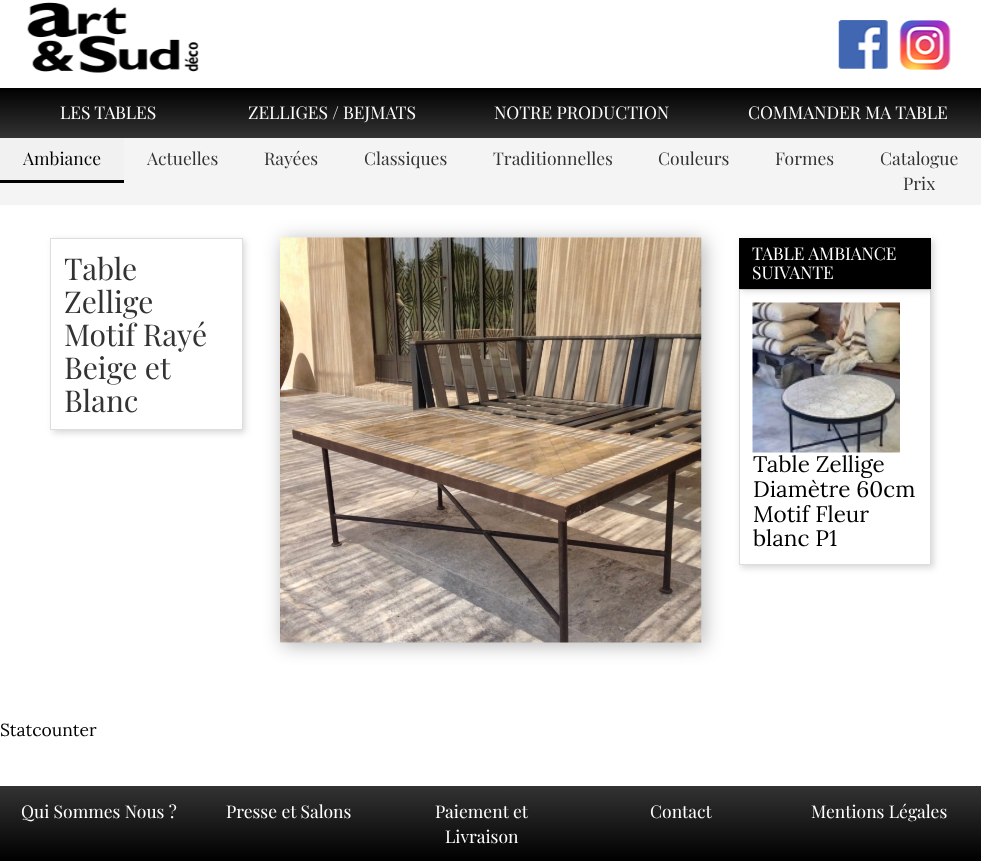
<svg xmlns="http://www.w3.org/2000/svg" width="981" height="861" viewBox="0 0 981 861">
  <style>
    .t1 { font: 17.5px Playfair Display; fill: #fff; }
    .t2 { font: 17.5px Playfair Display; fill: #000; }
    .t3 { font: 17.5px Playfair Display; fill: #333; }
    .t4 { font: 30px Playfair Display; fill: #333; }
    .t5 { font: 22.5px Lora; fill: #000; }
    .t6 { font: 17.5px Lora; fill: #000; }
  </style>
  <defs>
    <linearGradient id="g1" gradientUnits="userSpaceOnUse" x1="108" y1="87" x2="108" y2="138"><stop offset="0" stop-color="#000"/><stop offset="1" stop-color="#333"/></linearGradient>
    <linearGradient id="g2" gradientUnits="userSpaceOnUse" x1="332" y1="87" x2="332" y2="138"><stop offset="0" stop-color="#000"/><stop offset="1" stop-color="#333"/></linearGradient>
    <linearGradient id="g3" gradientUnits="userSpaceOnUse" x1="582" y1="87" x2="582" y2="138"><stop offset="0" stop-color="#000"/><stop offset="1" stop-color="#333"/></linearGradient>
    <linearGradient id="g4" gradientUnits="userSpaceOnUse" x1="848" y1="87" x2="848" y2="138"><stop offset="0" stop-color="#000"/><stop offset="1" stop-color="#333"/></linearGradient>
    <clipPath id="clip1"><path d="M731 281H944V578H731ZM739 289H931V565H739Z" clip-rule="evenodd"/></clipPath>
    <linearGradient id="g5" gradientUnits="userSpaceOnUse" x1="99" y1="786" x2="99" y2="861"><stop offset="0" stop-color="#333"/><stop offset="1" stop-color="#000"/></linearGradient>
    <linearGradient id="g6" gradientUnits="userSpaceOnUse" x1="289" y1="786" x2="289" y2="861"><stop offset="0" stop-color="#333"/><stop offset="1" stop-color="#000"/></linearGradient>
    <linearGradient id="g7" gradientUnits="userSpaceOnUse" x1="482" y1="786" x2="482" y2="861"><stop offset="0" stop-color="#333"/><stop offset="1" stop-color="#000"/></linearGradient>
    <linearGradient id="g8" gradientUnits="userSpaceOnUse" x1="680" y1="786" x2="680" y2="861"><stop offset="0" stop-color="#333"/><stop offset="1" stop-color="#000"/></linearGradient>
    <linearGradient id="g9" gradientUnits="userSpaceOnUse" x1="879" y1="786" x2="879" y2="861"><stop offset="0" stop-color="#333"/><stop offset="1" stop-color="#000"/></linearGradient>
  </defs>
  <rect width="100%" height="100%" fill="#fff"/>
  <image x="27" y="2" width="172" height="71" href="images/1.png"/>
  <image x="838" y="20" width="50" height="49" href="images/2.png"/>
  <image x="899" y="20" width="52" height="50" href="images/3.png"/>
  <rect x="0" y="88" width="215" height="50" fill="url(#g1)"/>
  <text x="60" y="119" class="t1">LES TABLES</text>
  <rect x="215" y="88" width="234" height="50" fill="url(#g2)"/>
  <text x="248" y="119" class="t1">ZELLIGES / BEJMATS</text>
  <rect x="449" y="88" width="266" height="50" fill="url(#g3)"/>
  <text x="494" y="119" class="t1">NOTRE PRODUCTION</text>
  <rect x="715" y="88" width="266" height="50" fill="url(#g4)"/>
  <text x="748" y="119" class="t1">COMMANDER MA TABLE</text>
  <rect x="0" y="138" width="981" height="67" fill="#f4f4f4"/>
  <rect x="0" y="138" width="124" height="42" fill="#f1f1f1"/>
  <rect x="0" y="180" width="124" height="3" fill="#000"/>
  <text x="23" y="165" class="t2">Ambiance</text>
  <text x="147" y="165" class="t3">Actuelles</text>
  <text x="264" y="165" class="t3">Rayées</text>
  <text x="364" y="165" class="t3">Classiques</text>
  <text x="493" y="165" class="t3">Traditionnelles</text>
  <text x="658" y="165" class="t3">Couleurs</text>
  <text x="775" y="165" class="t3">Formes</text>
  <text x="880" y="165" class="t3">Catalogue</text>
  <text x="903" y="190" class="t3">Prix</text>
  <rect x="53" y="240" width="192" height="193" fill="#00000026" filter="blur(3px)"/>
  <rect x="50.5" y="238.5" width="192" height="191" fill="#fff" stroke="#ddd"/>
  <text x="64" y="280" class="t4">Table</text>
  <text x="64" y="313" class="t4">Zellige</text>
  <text x="64" y="346" class="t4">Motif Rayé</text>
  <text x="64" y="379" class="t4">Beige et</text>
  <text x="64" y="412" class="t4">Blanc</text>
  <rect x="283" y="240" width="421" height="405" fill="#0000004d" filter="blur(9.5px)"/>
  <image x="280" y="237" width="422" height="406" href="images/4.png"/>
  <g clip-path="url(#clip1)">
    <rect x="741" y="291" width="193" height="277" fill="#00000026" filter="blur(3px)"/>
  </g>
  <rect x="739.5" y="289.5" width="191" height="275" fill="none" stroke="#ddd"/>
  <rect x="741" y="240" width="193" height="51" fill="#00000026" filter="blur(3px)"/>
  <rect x="739" y="238" width="192" height="51" fill="#000"/>
  <text x="752" y="260" class="t1">TABLE AMBIANCE</text>
  <text x="752" y="279" class="t1">SUIVANTE</text>
  <image x="752" y="302" width="148" height="151" href="images/5.png"/>
  <text x="753" y="472" class="t5">Table Zellige</text>
  <text x="753" y="497" class="t5">Diamètre 60cm</text>
  <text x="753" y="522" class="t5">Motif Fleur</text>
  <text x="753" y="546" class="t5">blanc P1</text>
  <text x="0" y="736" class="t6">Statcounter</text>
  <rect x="0" y="786" width="198" height="75" fill="url(#g5)"/>
  <text x="21" y="818" class="t1">Qui Sommes Nous ?</text>
  <rect x="198" y="786" width="182" height="75" fill="url(#g6)"/>
  <text x="226" y="818" class="t1">Presse et Salons</text>
  <rect x="380" y="786" width="204" height="75" fill="url(#g7)"/>
  <text x="435" y="818" class="t1">Paiement et</text>
  <text x="445" y="843" class="t1">Livraison</text>
  <rect x="584" y="786" width="192" height="75" fill="url(#g8)"/>
  <text x="650" y="818" class="t1">Contact</text>
  <rect x="776" y="786" width="205" height="75" fill="url(#g9)"/>
  <text x="811" y="818" class="t1">Mentions Légales</text>
</svg>
